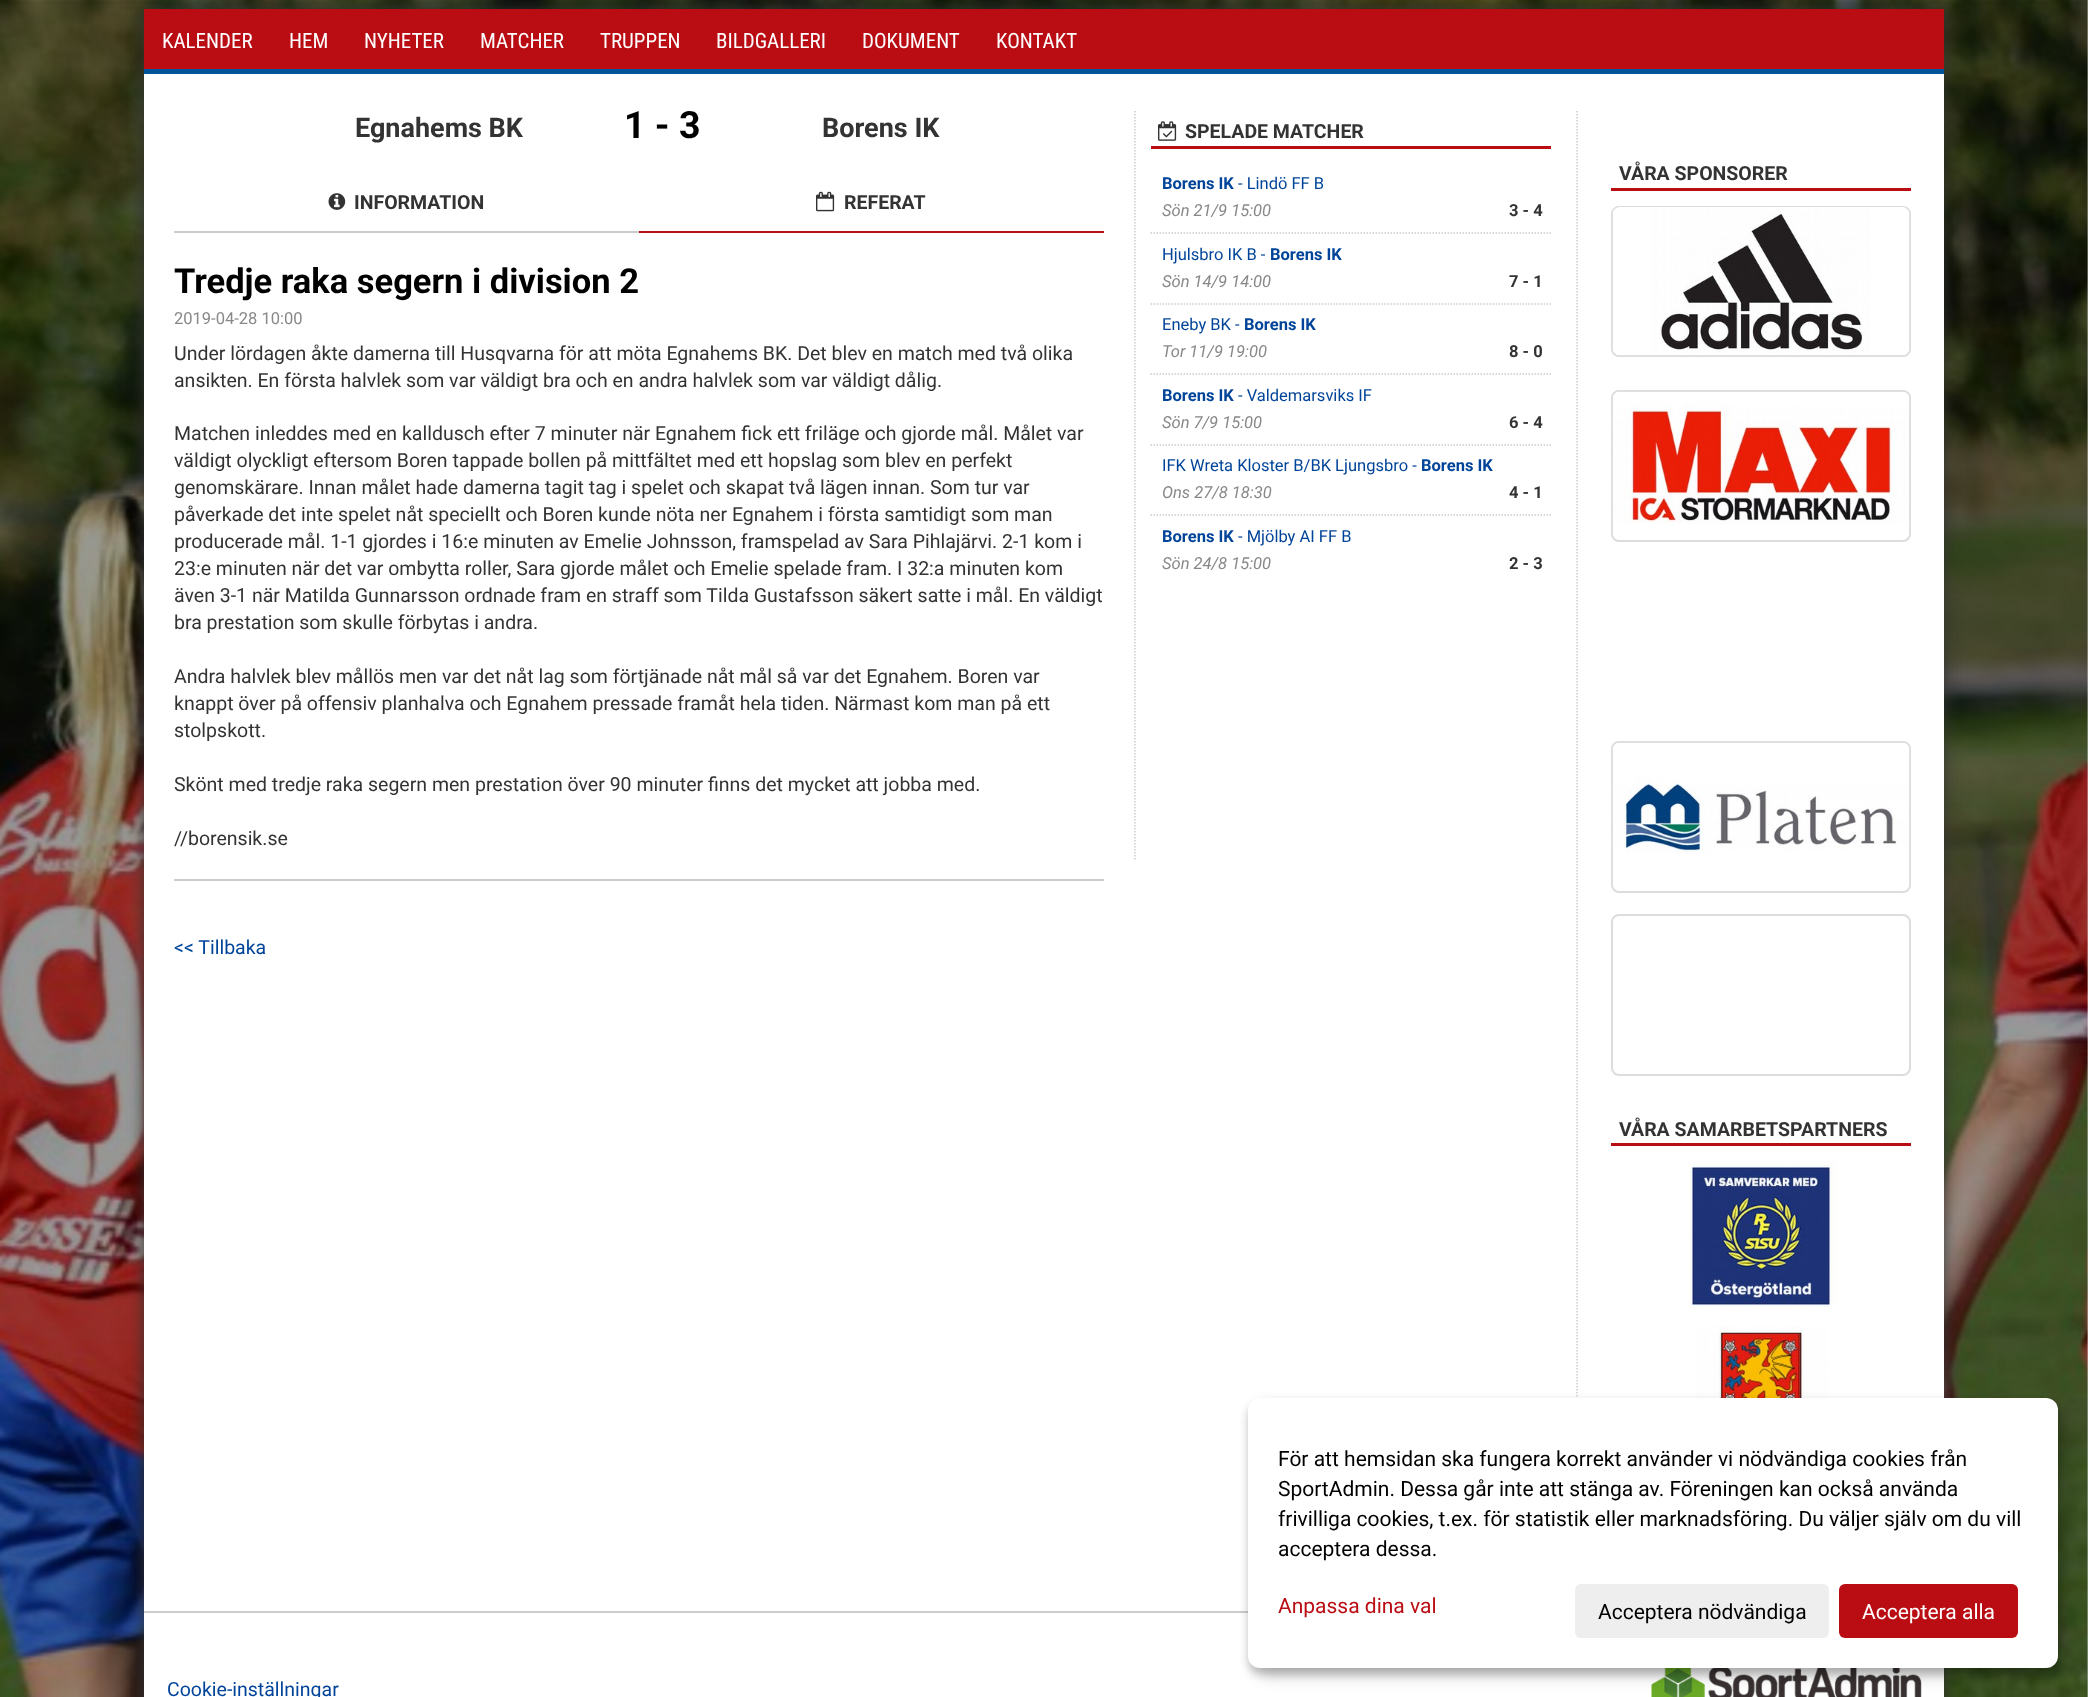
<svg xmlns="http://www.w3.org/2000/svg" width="2088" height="1697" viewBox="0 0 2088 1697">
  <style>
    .t1 { font: 21px Roboto Condensed; fill: #fff; }
    .t2 { font: bold 27px Roboto; fill: #333; }
    .t3 { font: bold 37.5px Roboto; fill: #000; }
    .t4 { font: bold 19.5px Roboto; fill: #333; }
    .t5 { font: bold 34.5px Roboto; fill: #000; }
    .t6 { font: 16.5px Roboto; fill: #888; }
    .t7 { font: 19.5px Roboto; fill: #333; }
    .t8 { font: 19.5px Roboto; fill: #049; }
    .t9 { font: bold 16.5px Roboto; fill: #049; }
    .t10 { font: 16.5px Roboto; fill: #049; }
    .t11 { font: italic 16.5px Roboto; fill: #888; }
    .t12 { font: bold 16.5px Roboto; fill: #333; }
    .t13 { font: 21px Roboto; fill: #000; }
    .t14 { font: 21px Roboto; fill: #ba0d13; }
    .t15 { font: 21px Roboto; fill: #fff; }
  </style>
  <rect width="100%" height="100%" fill="#fff"/>
  <image x="0" y="0" width="2088" height="1697" href="images/1.png"/>
  <rect x="144" y="9" width="1800" height="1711" fill="#333" filter="blur(7.5px)"/>
  <rect x="144" y="74" width="1800" height="1537" fill="#fff"/>
  <rect x="144" y="9" width="1800" height="60" fill="#ba0d13"/>
  <text x="162" y="48" class="t1">KALENDER</text>
  <text x="289" y="48" class="t1">HEM</text>
  <text x="364" y="48" class="t1">NYHETER</text>
  <text x="480" y="48" class="t1">MATCHER</text>
  <text x="600" y="48" class="t1">TRUPPEN</text>
  <text x="716" y="48" class="t1">BILDGALLERI</text>
  <text x="862" y="48" class="t1">DOKUMENT</text>
  <text x="996" y="48" class="t1">KONTAKT</text>
  <rect x="144" y="69" width="1800" height="5" fill="#059"/>
  <text x="355" y="137" class="t2">Egnahems BK</text>
  <text x="624" y="138" class="t3">1 - 3</text>
  <text x="822" y="137" class="t2">Borens IK</text>
  <rect x="174" y="231" width="465" height="2" fill="#ccc"/>
  <image x="328" y="193" width="18" height="17" href="images/2.png"/>
  <text x="354" y="209" class="t4">INFORMATION</text>
  <rect x="639" y="231" width="465" height="2" fill="#ba0d13"/>
  <image x="816" y="191" width="19" height="21" href="images/3.png"/>
  <text x="844" y="209" class="t4">REFERAT</text>
  <text x="174" y="293" class="t5">Tredje raka segern i division 2</text>
  <text x="174" y="324" class="t6">2019-04-28 10:00</text>
  <text x="174" y="360" class="t7">Under lördagen åkte damerna till Husqvarna för att möta Egnahems BK. Det blev en match med två olika</text>
  <text x="174" y="387" class="t7">ansikten. En första halvlek som var väldigt bra och en andra halvlek som var väldigt dålig.</text>
  <text x="174" y="440" class="t7">Matchen inleddes med en kalldusch efter 7 minuter när Egnahem fick ett friläge och gjorde mål. Målet var</text>
  <text x="174" y="467" class="t7">väldigt olyckligt eftersom Boren tappade bollen på mittfältet med ett hopslag som blev en perfekt</text>
  <text x="174" y="494" class="t7">genomskärare. Innan målet hade damerna tagit tag i spelet och skapat två lägen innan. Som tur var</text>
  <text x="174" y="521" class="t7">påverkade det inte spelet nåt speciellt och Boren kunde nöta ner Egnahem i första samtidigt som man</text>
  <text x="174" y="548" class="t7">producerade mål. 1-1 gjordes i 16:e minuten av Emelie Johnsson, framspelad av Sara Pihlajärvi. 2-1 kom i</text>
  <text x="174" y="575" class="t7">23:e minuten när det var ombytta roller, Sara gjorde målet och Emelie spelade fram. I 32:a minuten kom</text>
  <text x="174" y="602" class="t7">även 3-1 när Matilda Gunnarsson ordnade fram en straff som Tilda Gustafsson säkert satte i mål. En väldigt</text>
  <text x="174" y="629" class="t7">bra prestation som skulle förbytas i andra.</text>
  <text x="174" y="683" class="t7">Andra halvlek blev mållös men var det nåt lag som förtjänade nåt mål så var det Egnahem. Boren var</text>
  <text x="174" y="710" class="t7">knappt över på offensiv planhalva och Egnahem pressade framåt hela tiden. Närmast kom man på ett</text>
  <text x="174" y="737" class="t7">stolpskott.</text>
  <text x="174" y="791" class="t7">Skönt med tredje raka segern men prestation över 90 minuter finns det mycket att jobba med.</text>
  <text x="174" y="845" class="t7">//borensik.se</text>
  <rect x="174" y="879" width="930" height="2" fill="#ccc"/>
  <text x="174" y="954" class="t8">&lt;&lt; Tillbaka</text>
  <path d="M1135 111V861" fill="none" stroke="#ccc" stroke-width="1.5" stroke-dasharray="1.5 1.5"/>
  <rect x="1151" y="146" width="400" height="3" fill="#ba0d13"/>
  <image x="1158" y="121" width="19" height="20" href="images/4.png"/>
  <text x="1185" y="138" class="t4">SPELADE MATCHER</text>
  <text x="1162" y="189" class="t9">Borens IK</text>
  <text x="1238" y="189" class="t10">- Lindö FF B</text>
  <path d="M1150.5 233H1551" fill="none" stroke="#ccc" stroke-width="1.5" stroke-dasharray="1.5 1.5"/>
  <text x="1162" y="216" class="t11">Sön 21/9 15:00</text>
  <text x="1509" y="216" class="t12">3 - 4</text>
  <text x="1162" y="260" class="t10">Hjulsbro IK B -</text>
  <text x="1270" y="260" class="t9">Borens IK</text>
  <path d="M1150.5 304H1551" fill="none" stroke="#ccc" stroke-width="1.5" stroke-dasharray="1.5 1.5"/>
  <text x="1162" y="287" class="t11">Sön 14/9 14:00</text>
  <text x="1509" y="287" class="t12">7 - 1</text>
  <text x="1162" y="330" class="t10">Eneby BK -</text>
  <text x="1244" y="330" class="t9">Borens IK</text>
  <path d="M1150.5 374H1551" fill="none" stroke="#ccc" stroke-width="1.5" stroke-dasharray="1.5 1.5"/>
  <text x="1162" y="357" class="t11">Tor 11/9 19:00</text>
  <text x="1509" y="357" class="t12">8 - 0</text>
  <text x="1162" y="401" class="t9">Borens IK</text>
  <text x="1238" y="401" class="t10">- Valdemarsviks IF</text>
  <path d="M1150.5 445H1551" fill="none" stroke="#ccc" stroke-width="1.5" stroke-dasharray="1.5 1.5"/>
  <text x="1162" y="428" class="t11">Sön 7/9 15:00</text>
  <text x="1509" y="428" class="t12">6 - 4</text>
  <text x="1162" y="471" class="t10">IFK Wreta Kloster B/BK Ljungsbro -</text>
  <text x="1421" y="471" class="t9">Borens IK</text>
  <path d="M1150.5 515H1551" fill="none" stroke="#ccc" stroke-width="1.5" stroke-dasharray="1.5 1.5"/>
  <text x="1162" y="498" class="t11">Ons 27/8 18:30</text>
  <text x="1509" y="498" class="t12">4 - 1</text>
  <text x="1162" y="542" class="t9">Borens IK</text>
  <text x="1238" y="542" class="t10">- Mjölby AI FF B</text>
  <text x="1162" y="569" class="t11">Sön 24/8 15:00</text>
  <text x="1509" y="569" class="t12">2 - 3</text>
  <path d="M1577 111V1491" fill="none" stroke="#ccc" stroke-width="1.5" stroke-dasharray="1.5 1.5"/>
  <rect x="1611" y="188" width="300" height="3" fill="#ba0d13"/>
  <text x="1619" y="180" class="t4">VÅRA SPONSORER</text>
  <rect x="1612" y="207" width="298" height="149" rx="7" fill="none" stroke="#ddd" stroke-width="2"/>
  <image x="1612" y="207" width="298" height="149" href="images/5.png"/>
  <rect x="1612" y="391" width="298" height="150" rx="7" fill="none" stroke="#ddd" stroke-width="2"/>
  <image x="1612" y="391" width="298" height="145" href="images/6.png"/>
  <rect x="1612" y="742" width="298" height="150" rx="7" fill="none" stroke="#ddd" stroke-width="2"/>
  <image x="1612" y="742" width="298" height="145" href="images/7.png"/>
  <rect x="1612" y="915" width="298" height="160" rx="7" fill="none" stroke="#ddd" stroke-width="2"/>
  <rect x="1611" y="1143" width="300" height="3" fill="#ba0d13"/>
  <text x="1619" y="1136" class="t4">VÅRA SAMARBETSPARTNERS</text>
  <image x="1688" y="1161" width="151" height="146" href="images/8.png"/>
  <image x="1696" y="1326" width="131" height="72" href="images/9.png"/>
  <rect x="144" y="1613" width="1800" height="84" fill="#fff"/>
  <rect x="144" y="1611" width="1104" height="2" fill="#ccc"/>
  <text x="167" y="1696" class="t8">Cookie-inställningar</text>
  <image x="1651" y="1668" width="271" height="29" href="images/10.png"/>
  <rect x="1256" y="1406" width="810" height="270" rx="12" fill="#00000030" filter="blur(7.5px)"/>
  <rect x="1248" y="1404" width="810" height="270" rx="12" fill="#00000033" filter="blur(4.5px)"/>
  <rect x="1248" y="1398" width="810" height="270" rx="12" fill="#fff"/>
  <text x="1278" y="1466" class="t13">För att hemsidan ska fungera korrekt använder vi nödvändiga cookies från</text>
  <text x="1278" y="1496" class="t13">SportAdmin. Dessa går inte att stänga av. Föreningen kan också använda</text>
  <text x="1278" y="1526" class="t13">frivilliga cookies, t.ex. för statistik eller marknadsföring. Du väljer själv om du vill</text>
  <text x="1278" y="1556" class="t13">acceptera dessa.</text>
  <text x="1278" y="1613" class="t14">Anpassa dina val</text>
  <rect x="1575" y="1584" width="254" height="54" rx="6" fill="#eee"/>
  <text x="1598" y="1619" class="t13">Acceptera nödvändiga</text>
  <rect x="1839" y="1584" width="179" height="54" rx="6" fill="#ba0d13"/>
  <text x="1862" y="1619" class="t15">Acceptera alla</text>
</svg>
